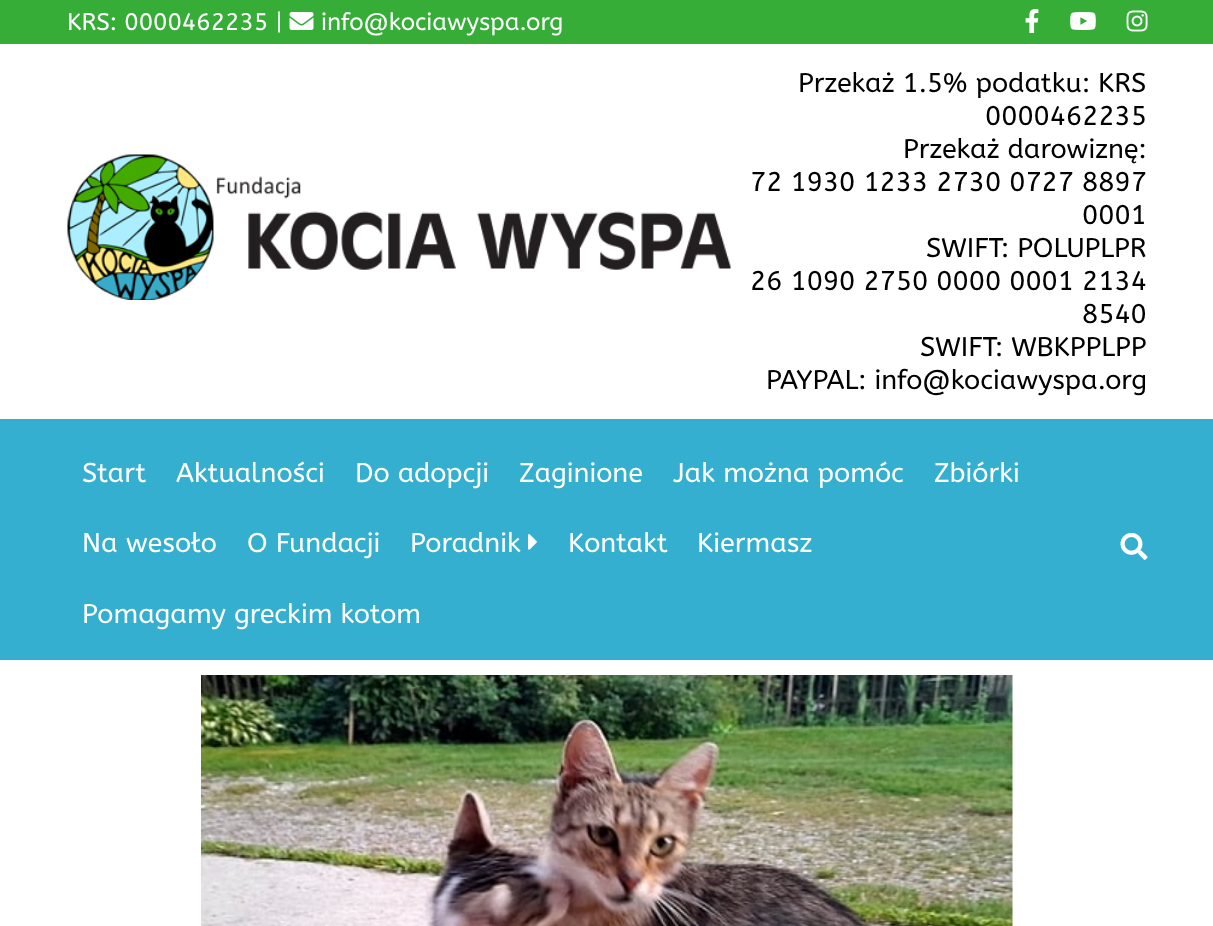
<svg xmlns="http://www.w3.org/2000/svg" width="1213" height="926" viewBox="0 0 1213 926">
  <style>
    .t1 { font: 24px ABeeZee; fill: #fff; }
    .t2 { font: 27px ABeeZee; fill: #000; }
    .t3 { font: 27px ABeeZee; fill: #fff; }
  </style>
  <rect width="100%" height="100%" fill="#fff"/>
  <rect x="0" y="0" width="1213" height="44" fill="#35ad37"/>
  <text x="67" y="30" class="t1">KRS: 0000462235 |</text>
  <image x="289" y="12" width="25" height="18" href="images/1.png"/>
  <text x="321" y="30" class="t1">info@kociawyspa.org</text>
  <image x="1025" y="9" width="14" height="24" href="images/2.png"/>
  <image x="1070" y="12" width="26" height="18" href="images/3.png"/>
  <image x="1126" y="10" width="22" height="22" href="images/4.png"/>
  <image x="67" y="154" width="664" height="146" href="images/5.png"/>
  <text x="798" y="92" class="t2">Przekaż 1.5% podatku: KRS</text>
  <text x="985" y="125" class="t2">0000462235</text>
  <text x="903" y="158" class="t2">Przekaż darowiznę:</text>
  <text x="750" y="191" class="t2">72 1930 1233 2730 0727 8897</text>
  <text x="1082" y="224" class="t2">0001</text>
  <text x="926" y="257" class="t2">SWIFT: POLUPLPR</text>
  <text x="750" y="290" class="t2">26 1090 2750 0000 0001 2134</text>
  <text x="1082" y="323" class="t2">8540</text>
  <text x="920" y="356" class="t2">SWIFT: WBKPPLPP</text>
  <text x="766" y="389" class="t2">PAYPAL: info@kociawyspa.org</text>
  <rect x="0" y="419" width="1213" height="241" fill="#35afd0"/>
  <text x="82" y="482" class="t3">Start</text>
  <text x="176" y="482" class="t3">Aktualności</text>
  <text x="355" y="482" class="t3">Do adopcji</text>
  <text x="519" y="482" class="t3">Zaginione</text>
  <text x="673" y="482" class="t3">Jak można pomóc</text>
  <text x="934" y="482" class="t3">Zbiórki</text>
  <text x="82" y="552" class="t3">Na wesoło</text>
  <text x="247" y="552" class="t3">O Fundacji</text>
  <text x="410" y="552" class="t3">Poradnik</text>
  <image x="528" y="534" width="9" height="16" href="images/6.png"/>
  <text x="568" y="552" class="t3">Kontakt</text>
  <text x="697" y="552" class="t3">Kiermasz</text>
  <text x="82" y="623" class="t3">Pomagamy greckim kotom</text>
  <image x="1120" y="532" width="28" height="28" href="images/7.png"/>
  <image x="201" y="675" width="812" height="251" href="images/8.png"/>
</svg>
